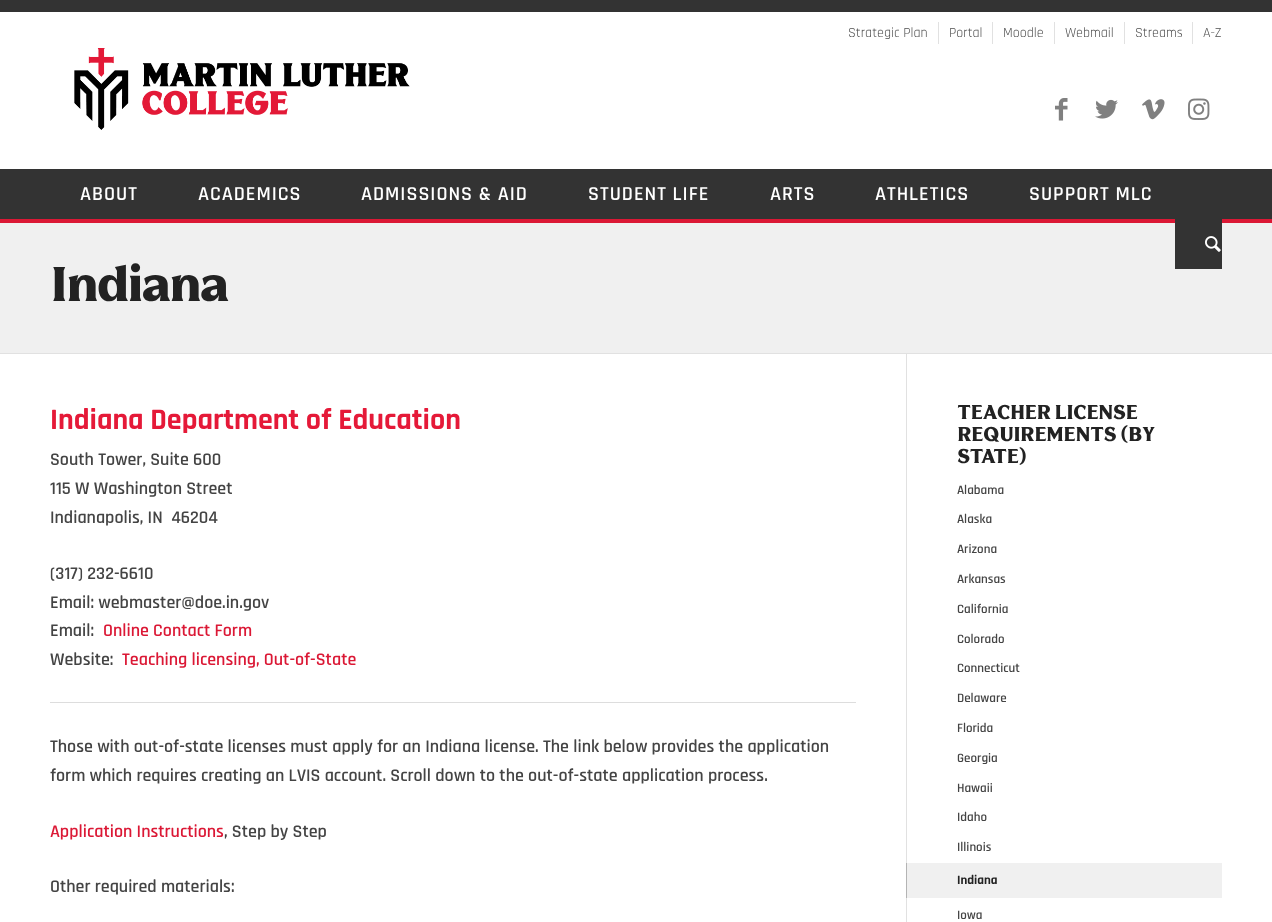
<svg xmlns="http://www.w3.org/2000/svg" width="1272" height="922" viewBox="0 0 1272 922">
  <style>
    .t1 { font: 14px Rajdhani; fill: #4f4f4f; }
    .t2 { font: 600 20px Rajdhani; letter-spacing: 1px; fill: #fff; }
    .t3 { font: 900 48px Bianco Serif; letter-spacing: -2px; fill: #222; }
    .t4 { font: bold 30px Rajdhani; fill: #e51938; }
    .t5 { font: 600 18px Rajdhani; fill: #444; }
    .t6 { font: 600 18px Rajdhani; fill: #db1835; }
    .t7 { font: 900 19.75px Bianco Serif; letter-spacing: -0.75px; fill: #222; }
    .t8 { font: 600 13px Rajdhani; fill: #444; }
    .t9 { font: bold 13px Rajdhani; fill: #222; }
  </style>
  <rect width="100%" height="100%" fill="#333"/>
  <rect x="0" y="12" width="1272" height="157" fill="#fff"/>
  <rect x="938" y="22" width="1" height="22" fill="#e1e1e1"/>
  <text x="848" y="37" class="t1">Strategic Plan</text>
  <rect x="992" y="22" width="1" height="22" fill="#e1e1e1"/>
  <text x="949" y="37" class="t1">Portal</text>
  <rect x="1054" y="22" width="1" height="22" fill="#e1e1e1"/>
  <text x="1003" y="37" class="t1">Moodle</text>
  <rect x="1124" y="22" width="1" height="22" fill="#e1e1e1"/>
  <text x="1065" y="37" class="t1">Webmail</text>
  <rect x="1192" y="22" width="1" height="22" fill="#e1e1e1"/>
  <text x="1135" y="37" class="t1">Streams</text>
  <text x="1203" y="37" class="t1">A-Z</text>
  <image x="74" y="48" width="336" height="82" href="images/1.png"/>
  <image x="1055" y="98" width="13" height="23" href="images/2.png"/>
  <image x="1095" y="99" width="23" height="20" href="images/3.png"/>
  <image x="1142" y="99" width="23" height="21" href="images/4.png"/>
  <image x="1188" y="98" width="22" height="22" href="images/5.png"/>
  <rect x="0" y="219" width="1272" height="4" fill="#db1835"/>
  <text x="80" y="200" class="t2">ABOUT</text>
  <text x="198" y="200" class="t2">ACADEMICS</text>
  <text x="361" y="200" class="t2">ADMISSIONS &amp; AID</text>
  <text x="588" y="200" class="t2">STUDENT LIFE</text>
  <text x="770" y="200" class="t2">ARTS</text>
  <text x="875" y="200" class="t2">ATHLETICS</text>
  <text x="1029" y="200" class="t2">SUPPORT MLC</text>
  <rect x="0" y="223" width="1272" height="130" fill="#f0f0f0"/>
  <rect x="1175" y="219" width="47" height="50" fill="#333"/>
  <image x="1205" y="236" width="16" height="16" href="images/6.png"/>
  <text x="50" y="301" class="t3">Indiana</text>
  <rect x="0" y="354" width="1272" height="568" fill="#fff"/>
  <rect x="0" y="353" width="1272" height="1" fill="#e1e1e1"/>
  <rect x="906" y="354" width="1" height="568" fill="#e1e1e1"/>
  <text x="50" y="429" class="t4">Indiana Department of Education</text>
  <text x="50" y="465" class="t5">South Tower, Suite 600</text>
  <text x="50" y="494" class="t5">115 W Washington Street</text>
  <text x="50" y="523" class="t5" xml:space="preserve">Indianapolis, IN  46204</text>
  <text x="50" y="579" class="t5">(317) 232-6610</text>
  <text x="50" y="608" class="t5">Email: webmaster@doe.in.gov</text>
  <text x="50" y="636" class="t5">Email:</text>
  <text x="103" y="636" class="t6">Online Contact Form</text>
  <text x="50" y="665" class="t5">Website:</text>
  <text x="122" y="665" class="t6">Teaching licensing, Out-of-State</text>
  <rect x="50" y="702" width="806" height="1" fill="#ddd"/>
  <text x="50" y="752" class="t5">Those with out-of-state licenses must apply for an Indiana license. The link below provides the application</text>
  <text x="50" y="781" class="t5">form which requires creating an LVIS account. Scroll down to the out-of-state application process.</text>
  <text x="50" y="837" class="t6">Application Instructions</text>
  <text x="224" y="837" class="t5">, Step by Step</text>
  <text x="50" y="892" class="t5">Other required materials:</text>
  <text x="957" y="419" class="t7">TEACHER LICENSE</text>
  <text x="957" y="441" class="t7">REQUIREMENTS (BY</text>
  <text x="957" y="463" class="t7">STATE)</text>
  <text x="957" y="494" class="t8">Alabama</text>
  <text x="957" y="523" class="t8">Alaska</text>
  <text x="957" y="553" class="t8">Arizona</text>
  <text x="957" y="583" class="t8">Arkansas</text>
  <text x="957" y="613" class="t8">California</text>
  <text x="957" y="643" class="t8">Colorado</text>
  <text x="957" y="672" class="t8">Connecticut</text>
  <text x="957" y="702" class="t8">Delaware</text>
  <text x="957" y="732" class="t8">Florida</text>
  <text x="957" y="762" class="t8">Georgia</text>
  <text x="957" y="792" class="t8">Hawaii</text>
  <text x="957" y="821" class="t8">Idaho</text>
  <text x="957" y="851" class="t8">Illinois</text>
  <rect x="906" y="863" width="316" height="35" fill="#00000033" filter="blur(0.5px)"/>
  <rect x="907" y="863" width="315" height="35" fill="#f0f0f0"/>
  <text x="957" y="884" class="t9">Indiana</text>
  <text x="957" y="919" class="t8">Iowa</text>
</svg>
